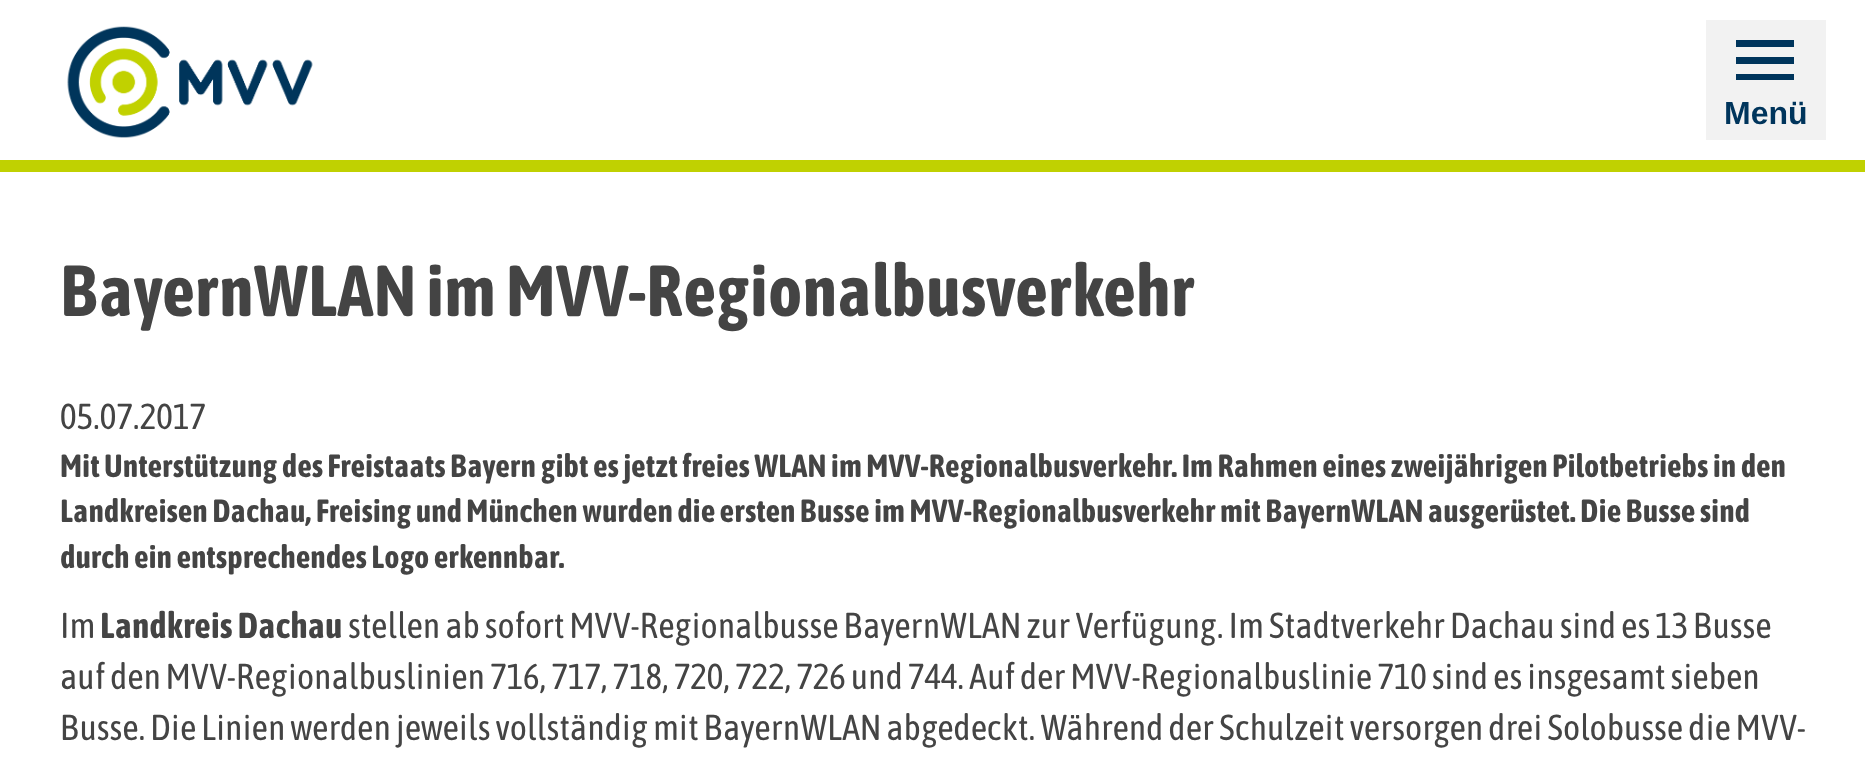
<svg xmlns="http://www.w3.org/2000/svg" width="1865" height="766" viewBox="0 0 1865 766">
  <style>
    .t1 { font: bold 32px Liberation Sans; fill: #00355c; }
    .t2 { font: bold 72px Asap Condensed; fill: #444; }
    .t3 { font: 36px Asap Condensed; fill: #444; }
    .t4 { font: bold 32px Asap Condensed; fill: #444; }
    .t5 { font: bold 36px Asap Condensed; fill: #444; }
  </style>
  <rect width="100%" height="100%" fill="#fff"/>
  <rect x="0" y="160" width="1865" height="12" fill="#c0d101"/>
  <image x="67" y="26" width="246" height="112" href="images/1.png"/>
  <rect x="1706" y="20" width="120" height="120" fill="#f2f2f2"/>
  <path d="M1736 40V47H1794V40ZM1736 64H1794V57H1736ZM1736 80H1794V74H1736Z" fill="#00355c"/>
  <text x="1724" y="124" class="t1">Menü</text>
  <text x="60" y="316" class="t2">BayernWLAN im MVV-Regionalbusverkehr</text>
  <text x="60" y="429" class="t3">05.07.2017</text>
  <text x="60" y="477" class="t4">Mit Unterstützung des Freistaats Bayern gibt es jetzt freies WLAN im MVV-Regionalbusverkehr. Im Rahmen eines zweijährigen Pilotbetriebs in den</text>
  <text x="60" y="522" class="t4">Landkreisen Dachau, Freising und München wurden die ersten Busse im MVV-Regionalbusverkehr mit BayernWLAN ausgerüstet. Die Busse sind</text>
  <text x="60" y="568" class="t4">durch ein entsprechendes Logo erkennbar.</text>
  <text x="60" y="638" class="t3">Im</text>
  <text x="100" y="638" class="t5">Landkreis Dachau</text>
  <text x="348" y="638" class="t3">stellen ab sofort MVV-Regionalbusse BayernWLAN zur Verfügung. Im Stadtverkehr Dachau sind es 13 Busse</text>
  <text x="60" y="689" class="t3">auf den MVV-Regionalbuslinien 716, 717, 718, 720, 722, 726 und 744. Auf der MVV-Regionalbuslinie 710 sind es insgesamt sieben</text>
  <text x="60" y="740" class="t3">Busse. Die Linien werden jeweils vollständig mit BayernWLAN abgedeckt. Während der Schulzeit versorgen drei Solobusse die MVV-</text>
</svg>
